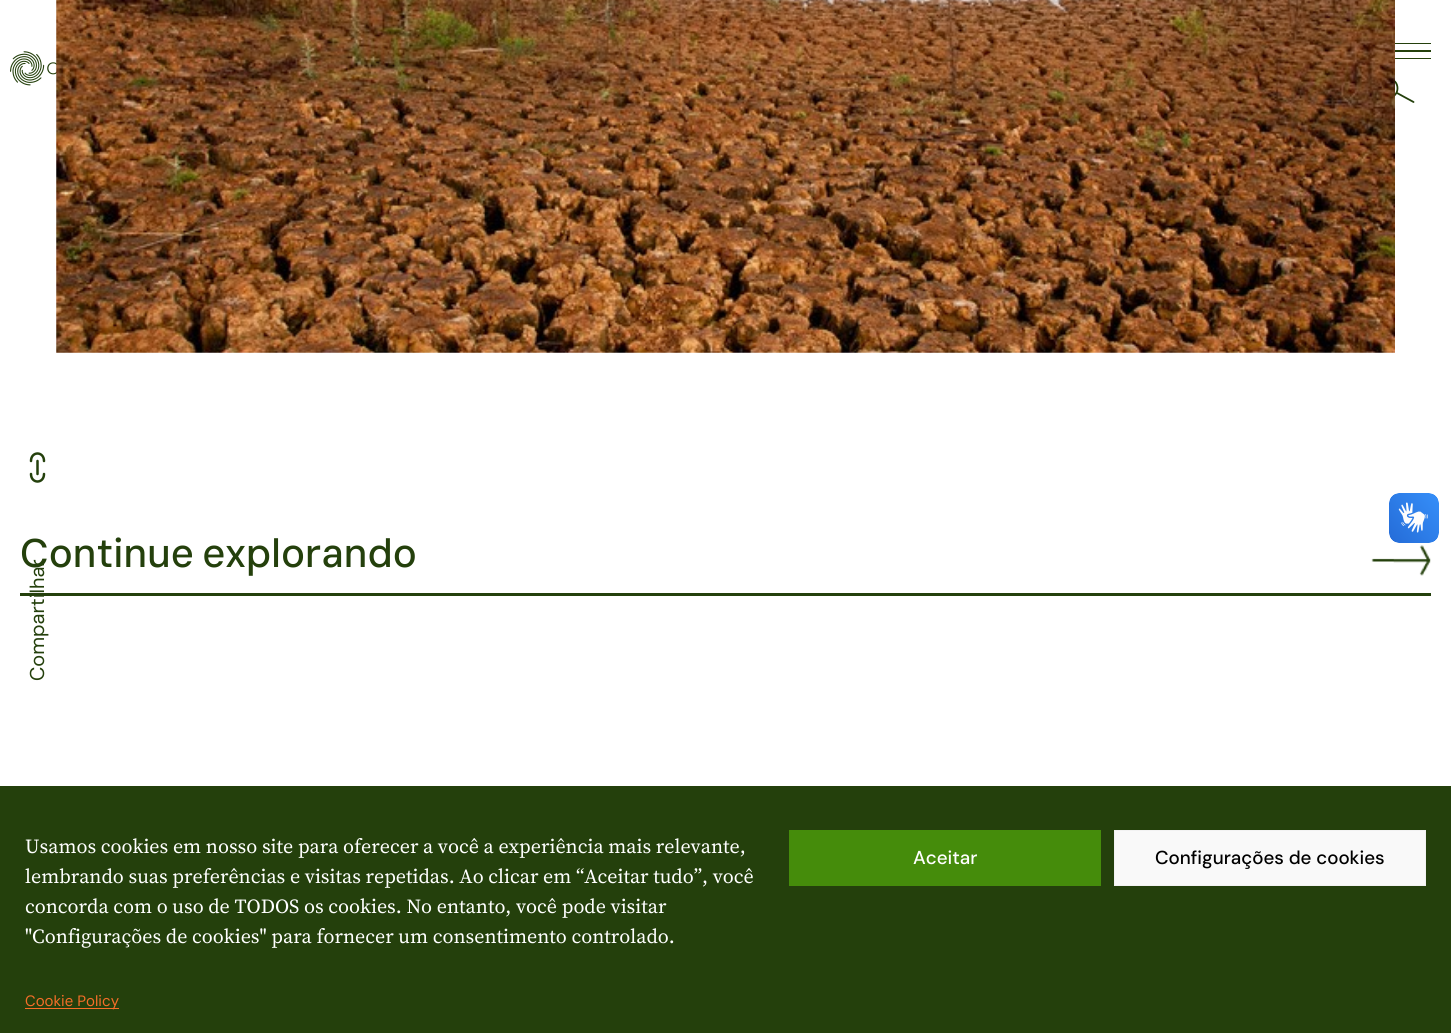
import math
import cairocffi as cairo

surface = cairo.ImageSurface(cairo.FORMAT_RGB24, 1451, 1033)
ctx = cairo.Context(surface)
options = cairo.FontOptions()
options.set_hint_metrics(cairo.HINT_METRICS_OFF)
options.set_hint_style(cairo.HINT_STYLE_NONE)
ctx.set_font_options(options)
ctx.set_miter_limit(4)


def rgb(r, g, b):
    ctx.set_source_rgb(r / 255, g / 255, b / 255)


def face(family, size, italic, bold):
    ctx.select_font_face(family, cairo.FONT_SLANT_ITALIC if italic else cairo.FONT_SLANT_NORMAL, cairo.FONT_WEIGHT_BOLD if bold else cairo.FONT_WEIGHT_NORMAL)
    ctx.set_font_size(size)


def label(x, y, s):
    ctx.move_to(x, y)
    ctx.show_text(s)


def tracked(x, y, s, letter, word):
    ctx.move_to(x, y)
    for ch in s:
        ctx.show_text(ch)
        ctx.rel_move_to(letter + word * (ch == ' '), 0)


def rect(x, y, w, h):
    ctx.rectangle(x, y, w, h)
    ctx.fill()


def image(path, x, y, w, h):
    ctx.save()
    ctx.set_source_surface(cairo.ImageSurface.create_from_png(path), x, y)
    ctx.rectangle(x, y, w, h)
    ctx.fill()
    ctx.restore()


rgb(255, 255, 255)
ctx.paint()
rgb(36, 64, 12)
rect(1389, 43, 42, 1)
rect(1389, 50, 42, 2)
rect(1389, 58, 42, 1)
image('image0.png', 10, 51, 47, 35)
ctx.new_path()
ctx.move_to(1388.5, 97.5)
ctx.curve_to(1400.5, 97.5, 1400.5, 79, 1388.5, 79)
ctx.curve_to(1376, 79, 1376, 97.5, 1388.5, 97.5)
ctx.close_path()
ctx.move_to(1413.5, 102)
ctx.line_to(1397, 93)
ctx.set_line_width(1.8)
ctx.set_line_cap(cairo.LINE_CAP_ROUND)
ctx.set_line_join(cairo.LINE_JOIN_ROUND)
ctx.stroke()
image('image1.png', 1389, 493, 50, 50)
rect(20, 593, 1411, 3)
face('DM Sans Medium', 40, 0, 0)
tracked(20, 567, 'Continue explorando', 0, -2)
image('image2.png', 1371, 545, 60, 31)
image('image3.png', 56, 0, 1339, 353)
ctx.new_path()
ctx.move_to(37.5, 461)
ctx.line_to(37.5, 474)
ctx.move_to(44, 461)
ctx.curve_to(44, 451, 31, 451, 31, 461)
ctx.move_to(31, 474)
ctx.curve_to(31, 484, 44, 484, 44, 474)
ctx.set_line_width(2.5)
ctx.stroke()
face('DM Sans', 20, 0, 0)
ctx.save()
ctx.translate(44, 681)
ctx.rotate(-90 * math.pi / 180)
label(0, 0, 'Compartilhar')
ctx.restore()
rect(0, 786, 1451, 247)
face('Source Serif 4', 20, 0, 0)
rgb(255, 255, 255)
label(25, 853, 'Usamos cookies em nosso site para oferecer a você a experiência mais relevante,')
label(25, 883, 'lembrando suas preferências e visitas repetidas. Ao clicar em “Aceitar tudo”, você')
label(25, 913, 'concorda com o uso de TODOS os cookies. No entanto, você pode visitar')
label(25, 943, '"Configurações de cookies" para fornecer um consentimento controlado.')
rgb(69, 140, 11)
rect(789, 830, 312, 56)
face('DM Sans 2 Medium', 18.75, 0, 0)
rgb(255, 255, 255)
label(913, 864, 'Aceitar')
rgb(249, 249, 249)
ctx.rectangle(1114.5, 830.5, 311, 55)
ctx.fill_preserve()
rgb(242, 242, 242)
ctx.set_line_width(1)
ctx.set_line_cap(cairo.LINE_CAP_BUTT)
ctx.set_line_join(cairo.LINE_JOIN_MITER)
ctx.stroke()
rgb(0, 0, 0)
label(1155, 864, 'Configurações de cookies')
rgb(245, 110, 40)
rect(25, 1008, 94, 1)
face('DM Sans 2', 15, 0, 0)
label(25, 1006, 'Cookie Policy')
surface.write_to_png('render.png')
